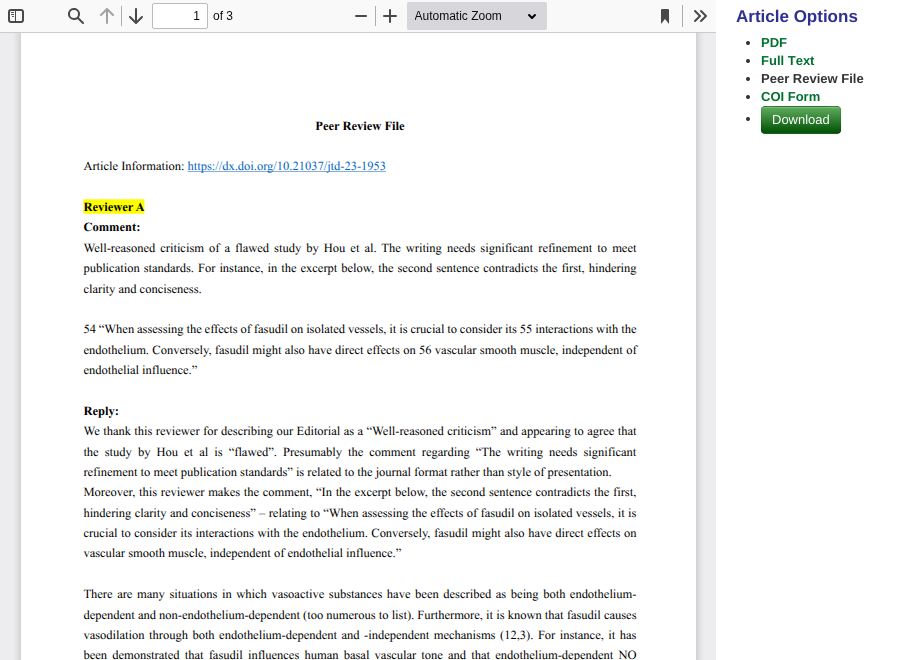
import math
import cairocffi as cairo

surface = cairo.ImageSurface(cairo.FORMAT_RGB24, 916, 660)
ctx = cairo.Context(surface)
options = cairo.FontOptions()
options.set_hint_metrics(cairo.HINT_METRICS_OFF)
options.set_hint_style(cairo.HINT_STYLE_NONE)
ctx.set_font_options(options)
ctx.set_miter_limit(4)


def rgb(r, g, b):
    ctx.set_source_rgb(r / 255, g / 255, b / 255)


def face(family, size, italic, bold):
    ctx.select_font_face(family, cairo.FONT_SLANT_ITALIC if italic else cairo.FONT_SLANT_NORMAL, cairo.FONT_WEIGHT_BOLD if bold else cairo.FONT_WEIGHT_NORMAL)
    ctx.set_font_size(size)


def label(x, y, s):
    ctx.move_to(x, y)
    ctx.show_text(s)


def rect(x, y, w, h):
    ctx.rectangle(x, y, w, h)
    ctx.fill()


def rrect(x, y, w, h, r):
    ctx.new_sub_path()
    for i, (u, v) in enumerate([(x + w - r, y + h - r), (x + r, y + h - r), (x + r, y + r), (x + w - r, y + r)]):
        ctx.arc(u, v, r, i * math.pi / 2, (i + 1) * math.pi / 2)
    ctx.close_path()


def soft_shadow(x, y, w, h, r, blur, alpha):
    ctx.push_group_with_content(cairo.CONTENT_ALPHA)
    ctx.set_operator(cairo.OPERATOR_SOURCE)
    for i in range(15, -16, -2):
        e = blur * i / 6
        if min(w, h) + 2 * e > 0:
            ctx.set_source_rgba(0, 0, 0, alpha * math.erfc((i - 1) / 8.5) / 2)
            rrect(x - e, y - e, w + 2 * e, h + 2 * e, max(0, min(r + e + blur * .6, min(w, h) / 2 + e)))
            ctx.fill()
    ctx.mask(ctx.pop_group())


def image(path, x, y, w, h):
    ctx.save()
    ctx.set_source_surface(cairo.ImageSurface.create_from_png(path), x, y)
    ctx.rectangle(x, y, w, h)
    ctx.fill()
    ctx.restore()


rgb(255, 255, 255)
ctx.paint()
image('image0.png', 0, 0, 716, 660)
face('Liberation Sans', 17, 0, 1)
rgb(46, 48, 146)
label(736, 22, 'Article Options')
rgb(51, 51, 51)
ctx.new_path()
ctx.arc(748, 43, 2, 0, 2 * math.pi)
ctx.fill()
face('Liberation Sans', 13, 0, 1)
rgb(0, 113, 48)
label(761, 47, 'PDF')
rgb(51, 51, 51)
ctx.new_path()
ctx.arc(748, 61, 2, 0, 2 * math.pi)
ctx.fill()
rgb(0, 113, 48)
label(761, 65, 'Full Text')
rgb(51, 51, 51)
ctx.new_path()
ctx.arc(748, 79, 2, 0, 2 * math.pi)
ctx.fill()
label(761, 83, 'Peer Review File')
ctx.new_path()
ctx.arc(748, 97, 2, 0, 2 * math.pi)
ctx.fill()
rgb(0, 113, 48)
label(761, 101, 'COI Form')
rgb(51, 51, 51)
ctx.new_path()
ctx.arc(748, 119, 2, 0, 2 * math.pi)
ctx.fill()
rgb(0, 0, 0)
soft_shadow(761, 107, 80, 28, 4, 1, 0.05)
rgb(46, 125, 50)
rrect(761, 106, 80, 28, 4)
ctx.fill()
ctx.save()
rrect(761, 106, 80, 28, 4)
ctx.clip()
gradient = cairo.LinearGradient(801, 107, 801, 133)
gradient.add_color_stop_rgba(0, 0.376, 0.678, 0.369, 1)
gradient.add_color_stop_rgba(1, 0, 0.314, 0.02, 1)
ctx.set_source(gradient)
rect(761, 107, 80, 26)
ctx.restore()
ctx.set_source_rgba(1, 1, 1, 0.2)
ctx.new_path()
ctx.move_to(765, 108)
ctx.line_to(837, 108)
ctx.curve_to(839, 108, 840, 109, 840, 111)
ctx.curve_to(840, 104, 829, 107, 825, 107)
ctx.line_to(777, 107)
ctx.curve_to(773, 107, 762, 104, 762, 111)
ctx.curve_to(762, 109, 763, 108, 765, 108)
ctx.close_path()
ctx.fill()
ctx.new_path()
ctx.move_to(839.5, 132.5)
ctx.curve_to(839, 133, 838, 133.5, 837, 133.5)
ctx.line_to(765, 133.5)
ctx.curve_to(764, 133.5, 763, 133, 762.5, 132.5)
ctx.set_source_rgba(0, 0, 0, 0.25)
ctx.set_line_width(1)
ctx.stroke()
ctx.new_path()
ctx.move_to(762.5, 132.5)
ctx.curve_to(760.5, 130, 761.5, 122.5, 761.5, 120)
ctx.curve_to(761.5, 104, 759.5, 106.5, 777, 106.5)
ctx.line_to(825, 106.5)
ctx.curve_to(844, 106.5, 840.5, 104.5, 840.5, 123.5)
ctx.curve_to(840.5, 126, 841.5, 130.5, 839.5, 132.5)
ctx.set_source_rgba(0, 0, 0, 0.1)
ctx.stroke()
face('Liberation Sans', 13, 0, 0)
rgb(255, 255, 255)
label(772, 124, 'Download')
surface.write_to_png('render.png')
